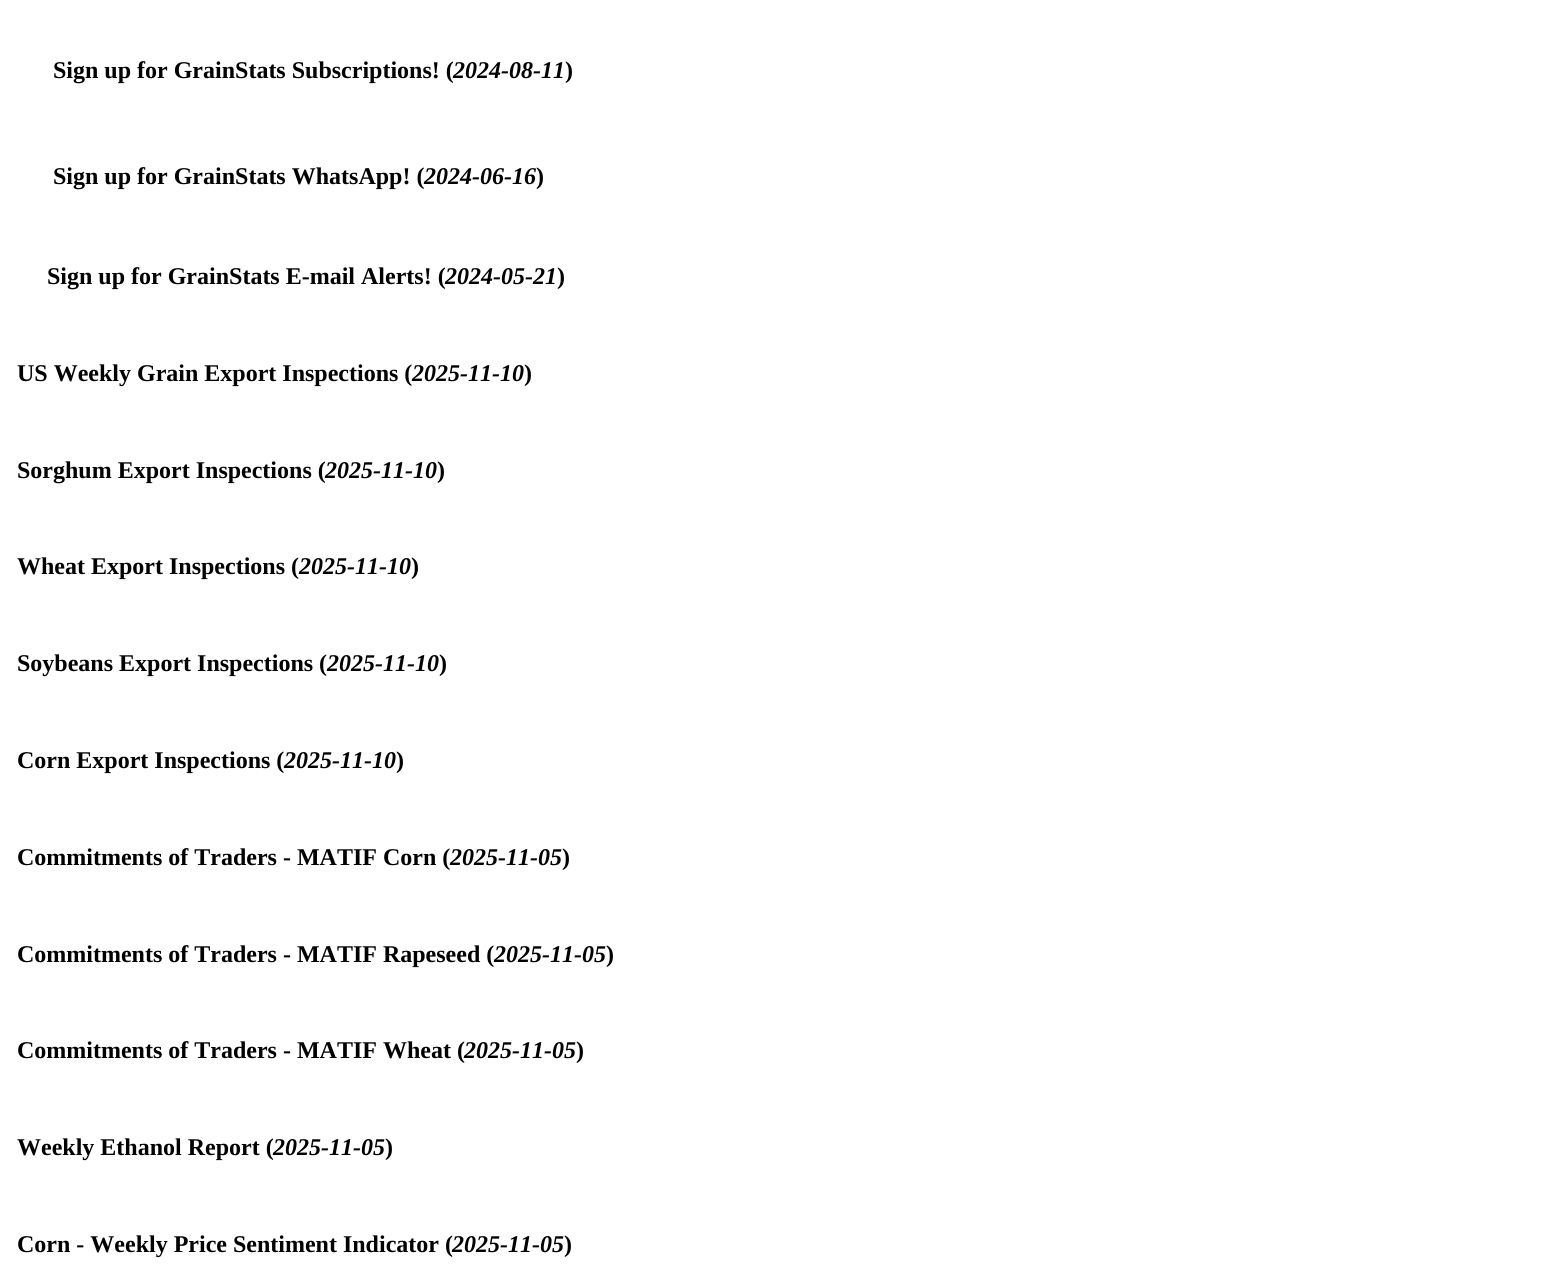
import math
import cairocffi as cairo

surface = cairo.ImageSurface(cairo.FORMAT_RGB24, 1550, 1267)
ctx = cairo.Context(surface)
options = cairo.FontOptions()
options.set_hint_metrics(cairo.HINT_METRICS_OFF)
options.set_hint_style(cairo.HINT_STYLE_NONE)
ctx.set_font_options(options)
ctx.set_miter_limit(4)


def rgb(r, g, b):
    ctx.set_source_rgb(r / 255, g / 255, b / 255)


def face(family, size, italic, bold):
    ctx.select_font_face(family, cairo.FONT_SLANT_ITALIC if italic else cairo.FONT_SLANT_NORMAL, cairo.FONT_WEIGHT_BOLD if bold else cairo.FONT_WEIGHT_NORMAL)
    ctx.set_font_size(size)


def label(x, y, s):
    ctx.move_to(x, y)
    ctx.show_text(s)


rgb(255, 255, 255)
ctx.paint()
face('Liberation Serif', 24, 0, 1)
rgb(0, 0, 0)
label(53, 78, 'Sign up for GrainStats Subscriptions! (')
face('Liberation Serif', 24, 1, 1)
label(453, 78, '2024-08-11')
face('Liberation Serif', 24, 0, 1)
label(565, 78, ')')
label(53, 184, 'Sign up for GrainStats WhatsApp! (')
face('Liberation Serif', 24, 1, 1)
label(424, 184, '2024-06-16')
face('Liberation Serif', 24, 0, 1)
label(536, 184, ')')
label(47, 284, 'Sign up for GrainStats E-mail Alerts! (')
face('Liberation Serif', 24, 1, 1)
label(445, 284, '2024-05-21')
face('Liberation Serif', 24, 0, 1)
label(557, 284, ')')
label(17, 381, 'US Weekly Grain Export Inspections (')
face('Liberation Serif', 24, 1, 1)
label(412, 381, '2025-11-10')
face('Liberation Serif', 24, 0, 1)
label(524, 381, ')')
label(17, 478, 'Sorghum Export Inspections (')
face('Liberation Serif', 24, 1, 1)
label(325, 478, '2025-11-10')
face('Liberation Serif', 24, 0, 1)
label(437, 478, ')')
label(17, 574, 'Wheat Export Inspections (')
face('Liberation Serif', 24, 1, 1)
label(299, 574, '2025-11-10')
face('Liberation Serif', 24, 0, 1)
label(411, 574, ')')
label(17, 671, 'Soybeans Export Inspections (')
face('Liberation Serif', 24, 1, 1)
label(327, 671, '2025-11-10')
face('Liberation Serif', 24, 0, 1)
label(439, 671, ')')
label(17, 768, 'Corn Export Inspections (')
face('Liberation Serif', 24, 1, 1)
label(284, 768, '2025-11-10')
face('Liberation Serif', 24, 0, 1)
label(396, 768, ')')
label(17, 865, 'Commitments of Traders - MATIF Corn (')
face('Liberation Serif', 24, 1, 1)
label(450, 865, '2025-11-05')
face('Liberation Serif', 24, 0, 1)
label(562, 865, ')')
label(17, 962, 'Commitments of Traders - MATIF Rapeseed (')
face('Liberation Serif', 24, 1, 1)
label(494, 962, '2025-11-05')
face('Liberation Serif', 24, 0, 1)
label(606, 962, ')')
label(17, 1058, 'Commitments of Traders - MATIF Wheat (')
face('Liberation Serif', 24, 1, 1)
label(464, 1058, '2025-11-05')
face('Liberation Serif', 24, 0, 1)
label(576, 1058, ')')
label(17, 1155, 'Weekly Ethanol Report (')
face('Liberation Serif', 24, 1, 1)
label(273, 1155, '2025-11-05')
face('Liberation Serif', 24, 0, 1)
label(385, 1155, ')')
label(17, 1252, 'Corn - Weekly Price Sentiment Indicator (')
face('Liberation Serif', 24, 1, 1)
label(452, 1252, '2025-11-05')
face('Liberation Serif', 24, 0, 1)
label(564, 1252, ')')
surface.write_to_png('render.png')
